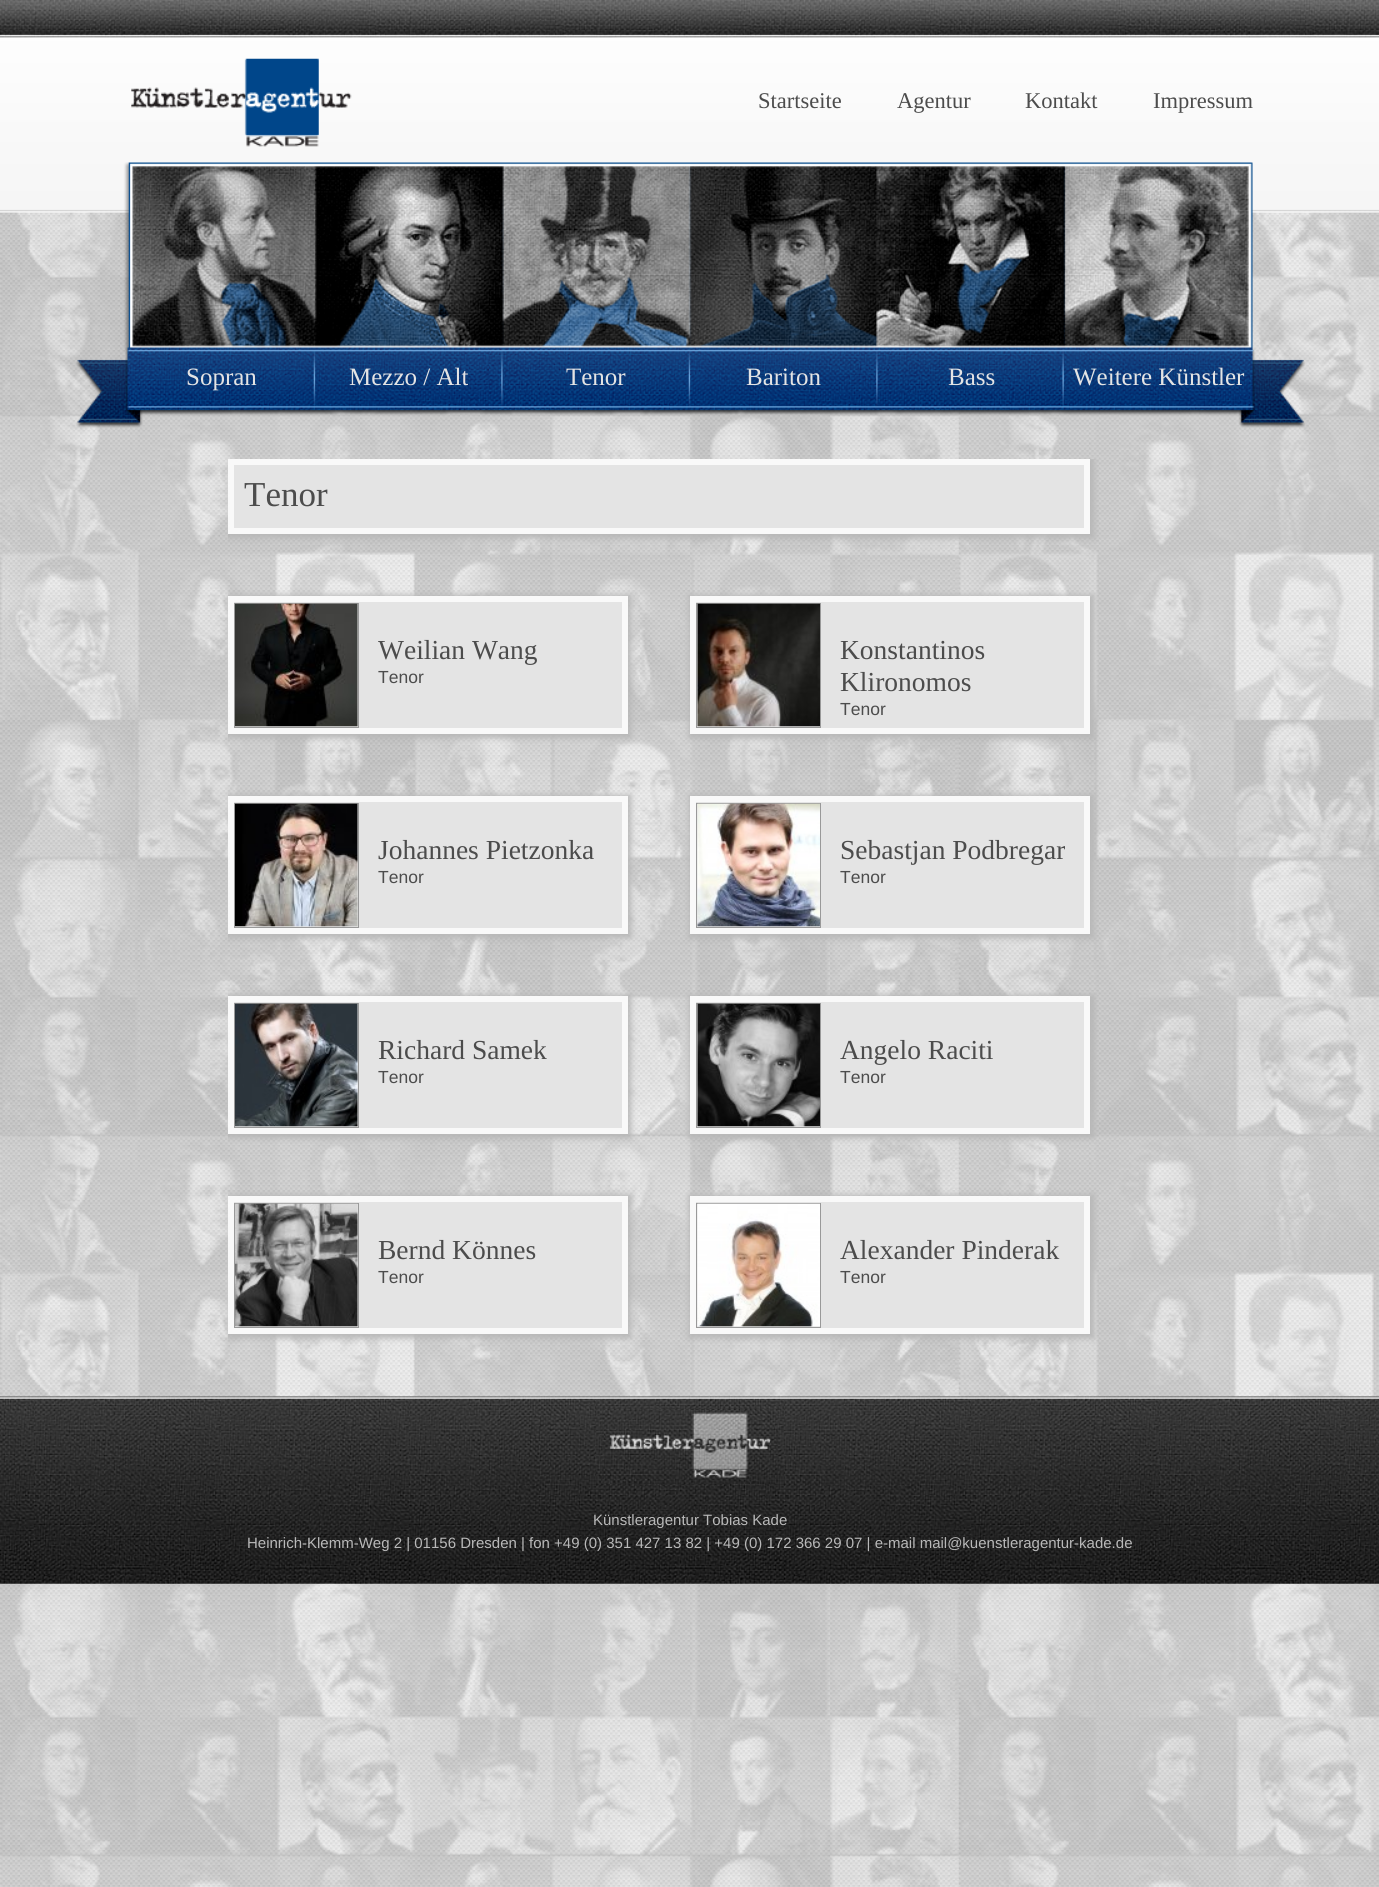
import math
import cairocffi as cairo

surface = cairo.ImageSurface(cairo.FORMAT_RGB24, 1379, 1887)
ctx = cairo.Context(surface)
options = cairo.FontOptions()
options.set_hint_metrics(cairo.HINT_METRICS_OFF)
options.set_hint_style(cairo.HINT_STYLE_NONE)
ctx.set_font_options(options)
ctx.set_miter_limit(4)


def rgb(r, g, b):
    ctx.set_source_rgb(r / 255, g / 255, b / 255)


def face(family, size, italic, bold):
    ctx.select_font_face(family, cairo.FONT_SLANT_ITALIC if italic else cairo.FONT_SLANT_NORMAL, cairo.FONT_WEIGHT_BOLD if bold else cairo.FONT_WEIGHT_NORMAL)
    ctx.set_font_size(size)


def label(x, y, s):
    ctx.move_to(x, y)
    ctx.show_text(s)


def rrect(x, y, w, h, r):
    ctx.new_sub_path()
    for i, (u, v) in enumerate([(x + w - r, y + h - r), (x + r, y + h - r), (x + r, y + r), (x + w - r, y + r)]):
        ctx.arc(u, v, r, i * math.pi / 2, (i + 1) * math.pi / 2)
    ctx.close_path()


def soft_shadow(x, y, w, h, r, blur, alpha):
    ctx.push_group_with_content(cairo.CONTENT_ALPHA)
    ctx.set_operator(cairo.OPERATOR_SOURCE)
    for i in range(15, -16, -2):
        e = blur * i / 6
        if min(w, h) + 2 * e > 0:
            ctx.set_source_rgba(0, 0, 0, alpha * math.erfc((i - 1) / 8.5) / 2)
            rrect(x - e, y - e, w + 2 * e, h + 2 * e, max(0, min(r + e + blur * .6, min(w, h) / 2 + e)))
            ctx.fill()
    ctx.mask(ctx.pop_group())


def image(path, x, y, w, h):
    ctx.save()
    ctx.set_source_surface(cairo.ImageSurface.create_from_png(path), x, y)
    ctx.rectangle(x, y, w, h)
    ctx.fill()
    ctx.restore()


rgb(255, 255, 255)
ctx.paint()
image('image0.png', 0, 37, 1379, 1850)
image('image1.png', 0, 0, 1379, 38)
image('image2.png', 0, 37, 1379, 176)
image('image3.png', 131, 58, 221, 89)
face('Liberation Serif', 22.5, 0, 0)
rgb(76, 76, 76)
label(758, 108, 'Startseite')
label(897, 108, 'Agentur')
label(1025, 108, 'Kontakt')
label(1153, 108, 'Impressum')
image('image4.png', 76, 162, 1229, 266)
face('Liberation Serif', 25, 0, 0)
rgb(228, 228, 228)
label(186, 385, 'Sopran')
label(349, 385, 'Mezzo / Alt')
label(566, 385, 'Tenor')
label(746, 385, 'Bariton')
label(948, 385, 'Bass')
label(1073, 385, 'Weitere Künstler')
ctx.save()
ctx.rectangle(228, 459, 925, 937)
ctx.clip()
rgb(183, 183, 183)
soft_shadow(226, 458, 868, 80, 0, 3, 1)
ctx.restore()
ctx.rectangle(231, 462, 856, 69)
ctx.fill_preserve()
rgb(249, 249, 249)
ctx.set_line_width(6)
ctx.stroke()
face('Liberation Serif', 35, 0, 0)
rgb(76, 76, 76)
label(244, 506, 'Tenor')
ctx.save()
ctx.rectangle(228, 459, 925, 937)
ctx.clip()
rgb(183, 183, 183)
soft_shadow(226, 595, 405, 143, 0, 3, 1)
ctx.restore()
rgb(228, 228, 228)
ctx.rectangle(231, 599, 394, 132)
ctx.fill_preserve()
rgb(249, 249, 249)
ctx.stroke()
ctx.rectangle(234.5, 603.5, 124, 124)
rgb(153, 153, 153)
ctx.set_line_width(1)
ctx.stroke()
image('image5.png', 235, 603, 123, 124)
face('Liberation Serif', 27.5, 0, 0)
rgb(76, 76, 76)
label(378, 659, 'Weilian Wang')
face('Liberation Sans', 17.5, 0, 0)
label(378, 683, 'Tenor')
rgb(183, 183, 183)
soft_shadow(689, 595, 405, 143, 0, 3, 1)
rgb(228, 228, 228)
ctx.rectangle(693, 599, 394, 132)
ctx.fill_preserve()
rgb(249, 249, 249)
ctx.set_line_width(6)
ctx.stroke()
ctx.rectangle(696.5, 603.5, 124, 124)
rgb(153, 153, 153)
ctx.set_line_width(1)
ctx.stroke()
image('image6.png', 697, 603, 123, 124)
face('Liberation Serif', 27.5, 0, 0)
rgb(76, 76, 76)
label(840, 659, 'Konstantinos')
label(840, 691, 'Klironomos')
face('Liberation Sans', 17.5, 0, 0)
label(840, 715, 'Tenor')
ctx.save()
ctx.rectangle(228, 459, 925, 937)
ctx.clip()
rgb(183, 183, 183)
soft_shadow(226, 795, 405, 143, 0, 3, 1)
ctx.restore()
rgb(228, 228, 228)
ctx.rectangle(231, 799, 394, 132)
ctx.fill_preserve()
rgb(249, 249, 249)
ctx.set_line_width(6)
ctx.stroke()
ctx.rectangle(234.5, 803.5, 124, 124)
rgb(153, 153, 153)
ctx.set_line_width(1)
ctx.stroke()
image('image7.png', 235, 803, 123, 124)
face('Liberation Serif', 27.5, 0, 0)
rgb(76, 76, 76)
label(378, 859, 'Johannes Pietzonka')
face('Liberation Sans', 17.5, 0, 0)
label(378, 883, 'Tenor')
rgb(183, 183, 183)
soft_shadow(689, 795, 405, 143, 0, 3, 1)
rgb(228, 228, 228)
ctx.rectangle(693, 799, 394, 132)
ctx.fill_preserve()
rgb(249, 249, 249)
ctx.set_line_width(6)
ctx.stroke()
ctx.rectangle(696.5, 803.5, 124, 124)
rgb(153, 153, 153)
ctx.set_line_width(1)
ctx.stroke()
image('image8.png', 697, 803, 123, 124)
face('Liberation Serif', 27.5, 0, 0)
rgb(76, 76, 76)
label(840, 859, 'Sebastjan Podbregar')
face('Liberation Sans', 17.5, 0, 0)
label(840, 883, 'Tenor')
ctx.save()
ctx.rectangle(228, 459, 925, 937)
ctx.clip()
rgb(183, 183, 183)
soft_shadow(226, 995, 405, 143, 0, 3, 1)
ctx.restore()
rgb(228, 228, 228)
ctx.rectangle(231, 999, 394, 132)
ctx.fill_preserve()
rgb(249, 249, 249)
ctx.set_line_width(6)
ctx.stroke()
ctx.rectangle(234.5, 1003.5, 124, 124)
rgb(153, 153, 153)
ctx.set_line_width(1)
ctx.stroke()
image('image9.png', 235, 1003, 123, 124)
face('Liberation Serif', 27.5, 0, 0)
rgb(76, 76, 76)
label(378, 1059, 'Richard Samek')
face('Liberation Sans', 17.5, 0, 0)
label(378, 1083, 'Tenor')
rgb(183, 183, 183)
soft_shadow(689, 995, 405, 143, 0, 3, 1)
rgb(228, 228, 228)
ctx.rectangle(693, 999, 394, 132)
ctx.fill_preserve()
rgb(249, 249, 249)
ctx.set_line_width(6)
ctx.stroke()
ctx.rectangle(696.5, 1003.5, 124, 124)
rgb(153, 153, 153)
ctx.set_line_width(1)
ctx.stroke()
image('image10.png', 697, 1003, 123, 124)
face('Liberation Serif', 27.5, 0, 0)
rgb(76, 76, 76)
label(840, 1059, 'Angelo Raciti')
face('Liberation Sans', 17.5, 0, 0)
label(840, 1083, 'Tenor')
ctx.save()
ctx.rectangle(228, 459, 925, 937)
ctx.clip()
rgb(183, 183, 183)
soft_shadow(226, 1195, 405, 143, 0, 3, 1)
ctx.restore()
rgb(228, 228, 228)
ctx.rectangle(231, 1199, 394, 132)
ctx.fill_preserve()
rgb(249, 249, 249)
ctx.set_line_width(6)
ctx.stroke()
ctx.rectangle(234.5, 1203.5, 124, 124)
rgb(153, 153, 153)
ctx.set_line_width(1)
ctx.stroke()
image('image11.png', 235, 1203, 123, 124)
face('Liberation Serif', 27.5, 0, 0)
rgb(76, 76, 76)
label(378, 1259, 'Bernd Könnes')
face('Liberation Sans', 17.5, 0, 0)
label(378, 1283, 'Tenor')
rgb(183, 183, 183)
soft_shadow(689, 1195, 405, 143, 0, 3, 1)
rgb(228, 228, 228)
ctx.rectangle(693, 1199, 394, 132)
ctx.fill_preserve()
rgb(249, 249, 249)
ctx.set_line_width(6)
ctx.stroke()
ctx.rectangle(696.5, 1203.5, 124, 124)
rgb(153, 153, 153)
ctx.set_line_width(1)
ctx.stroke()
image('image12.png', 697, 1203, 123, 124)
face('Liberation Serif', 27.5, 0, 0)
rgb(76, 76, 76)
label(840, 1259, 'Alexander Pinderak')
face('Liberation Sans', 17.5, 0, 0)
label(840, 1283, 'Tenor')
image('image13.png', 0, 1396, 1379, 188)
image('image14.png', 602, 1408, 176, 76)
face('Liberation Sans', 15, 0, 0)
rgb(185, 185, 185)
label(593, 1525, 'Künstleragentur Tobias Kade')
label(247, 1548, 'Heinrich-Klemm-Weg 2 | 01156 Dresden | fon +49 (0) 351 427 13 82 | +49 (0) 172 366 29 07 | e-mail mail@kuenstleragentur-kade.de')
surface.write_to_png('render.png')
